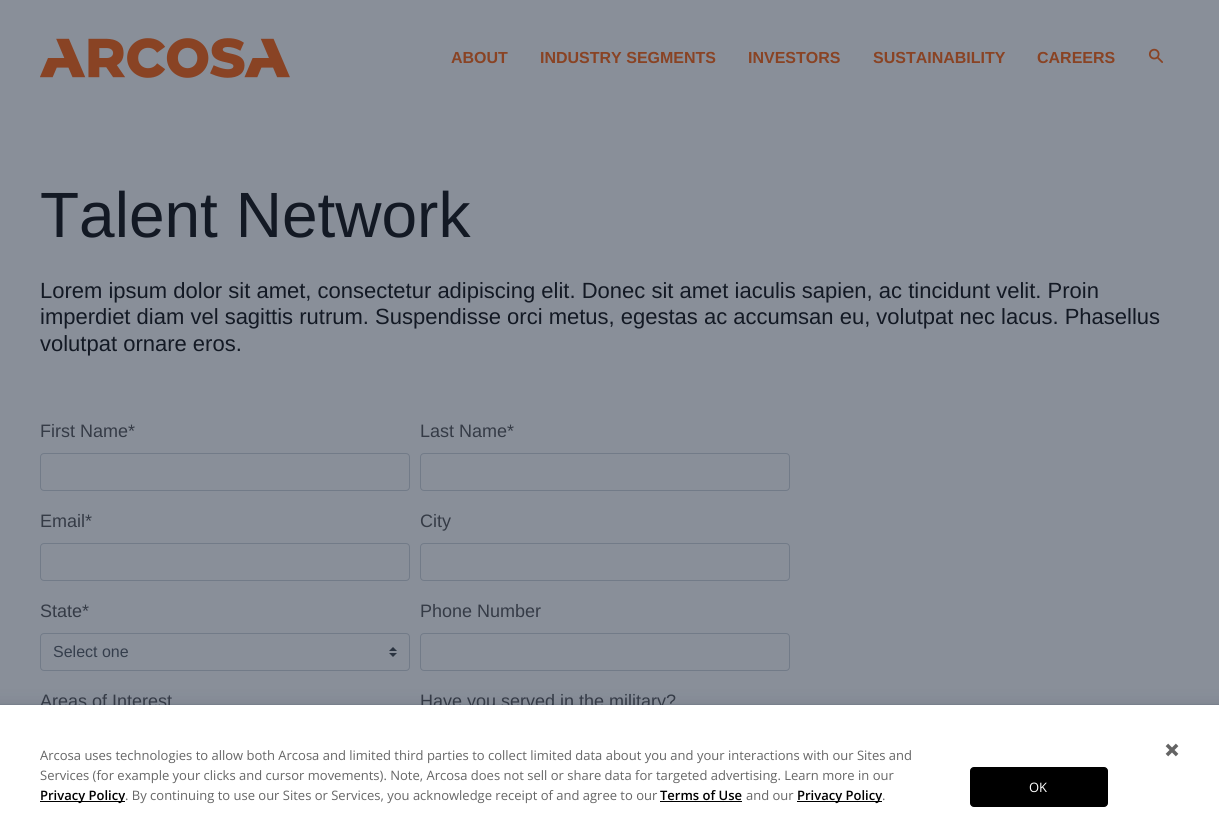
import math
import cairocffi as cairo

surface = cairo.ImageSurface(cairo.FORMAT_RGB24, 1219, 827)
ctx = cairo.Context(surface)
options = cairo.FontOptions()
options.set_hint_metrics(cairo.HINT_METRICS_OFF)
options.set_hint_style(cairo.HINT_STYLE_NONE)
ctx.set_font_options(options)
ctx.set_miter_limit(4)


def rgb(r, g, b):
    ctx.set_source_rgb(r / 255, g / 255, b / 255)


def face(family, size, italic, bold):
    ctx.select_font_face(family, cairo.FONT_SLANT_ITALIC if italic else cairo.FONT_SLANT_NORMAL, cairo.FONT_WEIGHT_BOLD if bold else cairo.FONT_WEIGHT_NORMAL)
    ctx.set_font_size(size)


def label(x, y, s):
    ctx.move_to(x, y)
    ctx.show_text(s)


def rect(x, y, w, h):
    ctx.rectangle(x, y, w, h)
    ctx.fill()


def rrect(x, y, w, h, r):
    ctx.new_sub_path()
    for i, (u, v) in enumerate([(x + w - r, y + h - r), (x + r, y + h - r), (x + r, y + r), (x + w - r, y + r)]):
        ctx.arc(u, v, r, i * math.pi / 2, (i + 1) * math.pi / 2)
    ctx.close_path()


def soft_shadow(x, y, w, h, r, blur, alpha):
    ctx.push_group_with_content(cairo.CONTENT_ALPHA)
    ctx.set_operator(cairo.OPERATOR_SOURCE)
    for i in range(15, -16, -2):
        e = blur * i / 6
        if min(w, h) + 2 * e > 0:
            ctx.set_source_rgba(0, 0, 0, alpha * math.erfc((i - 1) / 8.5) / 2)
            rrect(x - e, y - e, w + 2 * e, h + 2 * e, max(0, min(r + e + blur * .6, min(w, h) / 2 + e)))
            ctx.fill()
    ctx.mask(ctx.pop_group())


def image(path, x, y, w, h):
    ctx.save()
    ctx.set_source_surface(cairo.ImageSurface.create_from_png(path), x, y)
    ctx.rectangle(x, y, w, h)
    ctx.fill()
    ctx.restore()


rgb(137, 143, 153)
ctx.paint()
image('image0.png', 40, 38, 250, 40)
face('Liberation Sans', 16, 0, 1)
rgb(137, 67, 36)
label(451, 63, 'ABOUT')
label(540, 63, 'INDUSTRY SEGMENTS')
label(748, 63, 'INVESTORS')
label(873, 63, 'SUSTAINABILITY')
label(1037, 63, 'CAREERS')
image('image1.png', 1148, 48, 15, 15)
face('Liberation Sans', 64, 0, 0)
rgb(19, 25, 36)
label(40, 237, 'Talent Network')
face('Liberation Sans', 22, 0, 0)
label(40, 298, 'Lorem ipsum dolor sit amet, consectetur adipiscing elit. Donec sit amet iaculis sapien, ac tincidunt velit. Proin')
label(40, 324, 'imperdiet diam vel sagittis rutrum. Suspendisse orci metus, egestas ac accumsan eu, volutpat nec lacus. Phasellus')
label(40, 351, 'volutpat ornare eros.')
face('Liberation Sans', 18, 0, 0)
rgb(53, 59, 70)
label(40, 437, 'First Name*')
rrect(40.5, 453.5, 369, 37, 3.5)
rgb(114, 123, 136)
ctx.set_line_width(1)
ctx.stroke()
rgb(53, 59, 70)
label(420, 437, 'Last Name*')
rrect(420.5, 453.5, 369, 37, 3.5)
rgb(114, 123, 136)
ctx.stroke()
rgb(53, 59, 70)
label(40, 527, 'Email*')
rrect(40.5, 543.5, 369, 37, 3.5)
rgb(114, 123, 136)
ctx.stroke()
rgb(53, 59, 70)
label(420, 527, 'City')
rrect(420.5, 543.5, 369, 37, 3.5)
rgb(114, 123, 136)
ctx.stroke()
rgb(53, 59, 70)
label(40, 617, 'State*')
image('image2.png', 389, 647, 8, 10)
rrect(40.5, 633.5, 369, 37, 3.5)
rgb(114, 123, 136)
ctx.stroke()
face('Liberation Sans', 16, 0, 0)
rgb(53, 62, 76)
label(53, 657, 'Select one')
face('Liberation Sans', 18, 0, 0)
rgb(53, 59, 70)
label(420, 617, 'Phone Number')
rrect(420.5, 633.5, 369, 37, 3.5)
rgb(114, 123, 136)
ctx.stroke()
rgb(53, 59, 70)
label(40, 707, 'Areas of Interest')
label(420, 707, 'Have you served in the military?')
rgb(36, 47, 66)
soft_shadow(-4, 711, 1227, 110, 0, 10, 0.31)
ctx.rectangle(-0.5, 704.5, 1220, 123)
ctx.set_source_rgba(0.141, 0.184, 0.259, 0.08)
ctx.stroke()
rgb(255, 255, 255)
rect(0, 705, 1219, 122)
face('Open Sans', 13, 0, 0)
rgb(102, 102, 102)
label(40, 760, 'Arcosa uses technologies to allow both Arcosa and limited third parties to collect limited data about you and your interactions with our Sites and')
label(40, 780, 'Services (for example your clicks and cursor movements). Note, Arcosa does not sell or share data for targeted advertising. Learn more in our')
rgb(0, 0, 0)
rect(40, 801, 85, 1)
face('Open Sans SemiBold', 13, 0, 0)
label(40, 800, 'Privacy Policy')
face('Open Sans', 13, 0, 0)
rgb(102, 102, 102)
label(125, 800, '. By continuing to use our Sites or Services, you acknowledge receipt of and agree to our')
face('Open Sans SemiBold', 13, 0, 0)
rgb(0, 0, 0)
label(660, 800, 'Terms of Use')
rect(660, 801, 82, 1)
face('Open Sans', 13, 0, 0)
rgb(102, 102, 102)
label(746, 800, 'and our')
rgb(0, 0, 0)
rect(797, 801, 85, 1)
face('Open Sans SemiBold', 13, 0, 0)
label(797, 800, 'Privacy Policy')
face('Open Sans', 13, 0, 0)
rgb(102, 102, 102)
label(882, 800, '.')
image('image3.png', 1165, 743, 14, 14)
rgb(0, 0, 0)
rrect(970.5, 767.5, 137, 39, 3.5)
ctx.fill_preserve()
ctx.stroke()
rgb(255, 255, 255)
label(1029, 792, 'OK')
surface.write_to_png('render.png')
